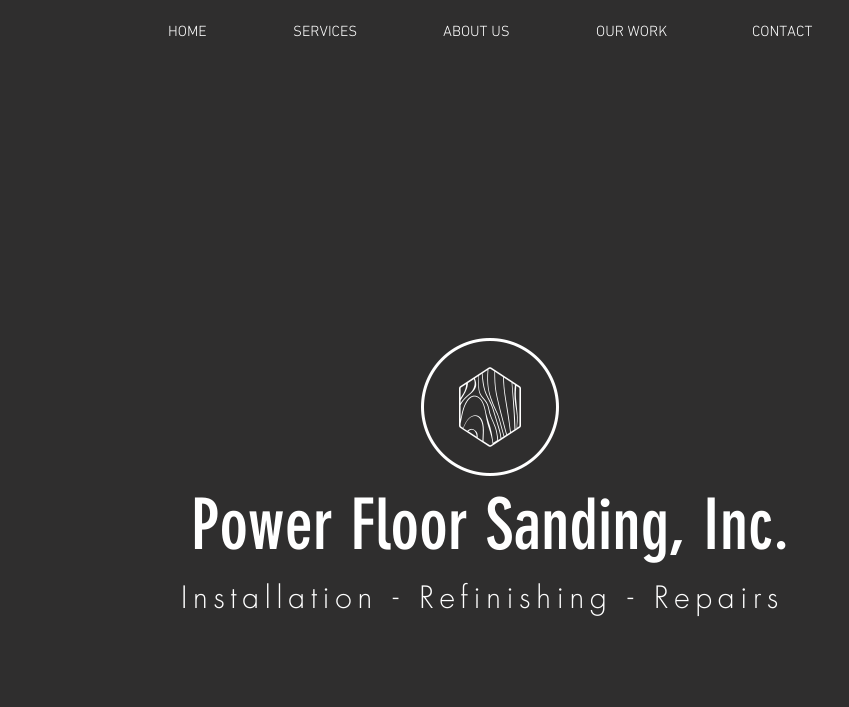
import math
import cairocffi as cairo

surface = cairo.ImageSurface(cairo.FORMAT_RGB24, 849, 707)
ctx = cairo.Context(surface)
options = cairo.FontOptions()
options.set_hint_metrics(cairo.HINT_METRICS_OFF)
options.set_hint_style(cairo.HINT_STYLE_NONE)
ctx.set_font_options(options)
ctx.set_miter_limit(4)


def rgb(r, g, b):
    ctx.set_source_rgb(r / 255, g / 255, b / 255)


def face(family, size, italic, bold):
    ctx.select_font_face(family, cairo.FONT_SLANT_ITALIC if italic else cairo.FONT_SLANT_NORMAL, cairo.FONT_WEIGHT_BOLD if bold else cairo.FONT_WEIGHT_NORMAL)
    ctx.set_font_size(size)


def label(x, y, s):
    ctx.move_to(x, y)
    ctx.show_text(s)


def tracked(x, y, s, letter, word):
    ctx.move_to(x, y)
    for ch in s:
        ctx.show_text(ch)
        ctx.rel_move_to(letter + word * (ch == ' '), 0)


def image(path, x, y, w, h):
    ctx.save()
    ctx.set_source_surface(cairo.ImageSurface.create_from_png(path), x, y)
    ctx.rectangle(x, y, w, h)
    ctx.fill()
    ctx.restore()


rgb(47, 46, 46)
ctx.paint()
face('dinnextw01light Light', 15, 0, 0)
rgb(255, 255, 255)
label(168, 36, 'HOME')
label(293, 36, 'SERVICES')
label(443, 36, 'ABOUT US')
label(596, 36, 'OUR WORK')
label(752, 36, 'CONTACT')
ctx.new_path()
ctx.arc(490, 407, 67.5, 0, 2 * math.pi)
ctx.set_line_width(3)
ctx.stroke()
image('image0.png', 459, 367, 62, 80)
face('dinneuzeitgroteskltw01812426', 70, 0, 0)
label(191, 549, 'Power Floor Sanding, Inc.')
face('futura Light', 30, 0, 0)
tracked(181, 608, 'Installation - Refinishing - Repairs', 5.7, 0)
surface.write_to_png('render.png')
